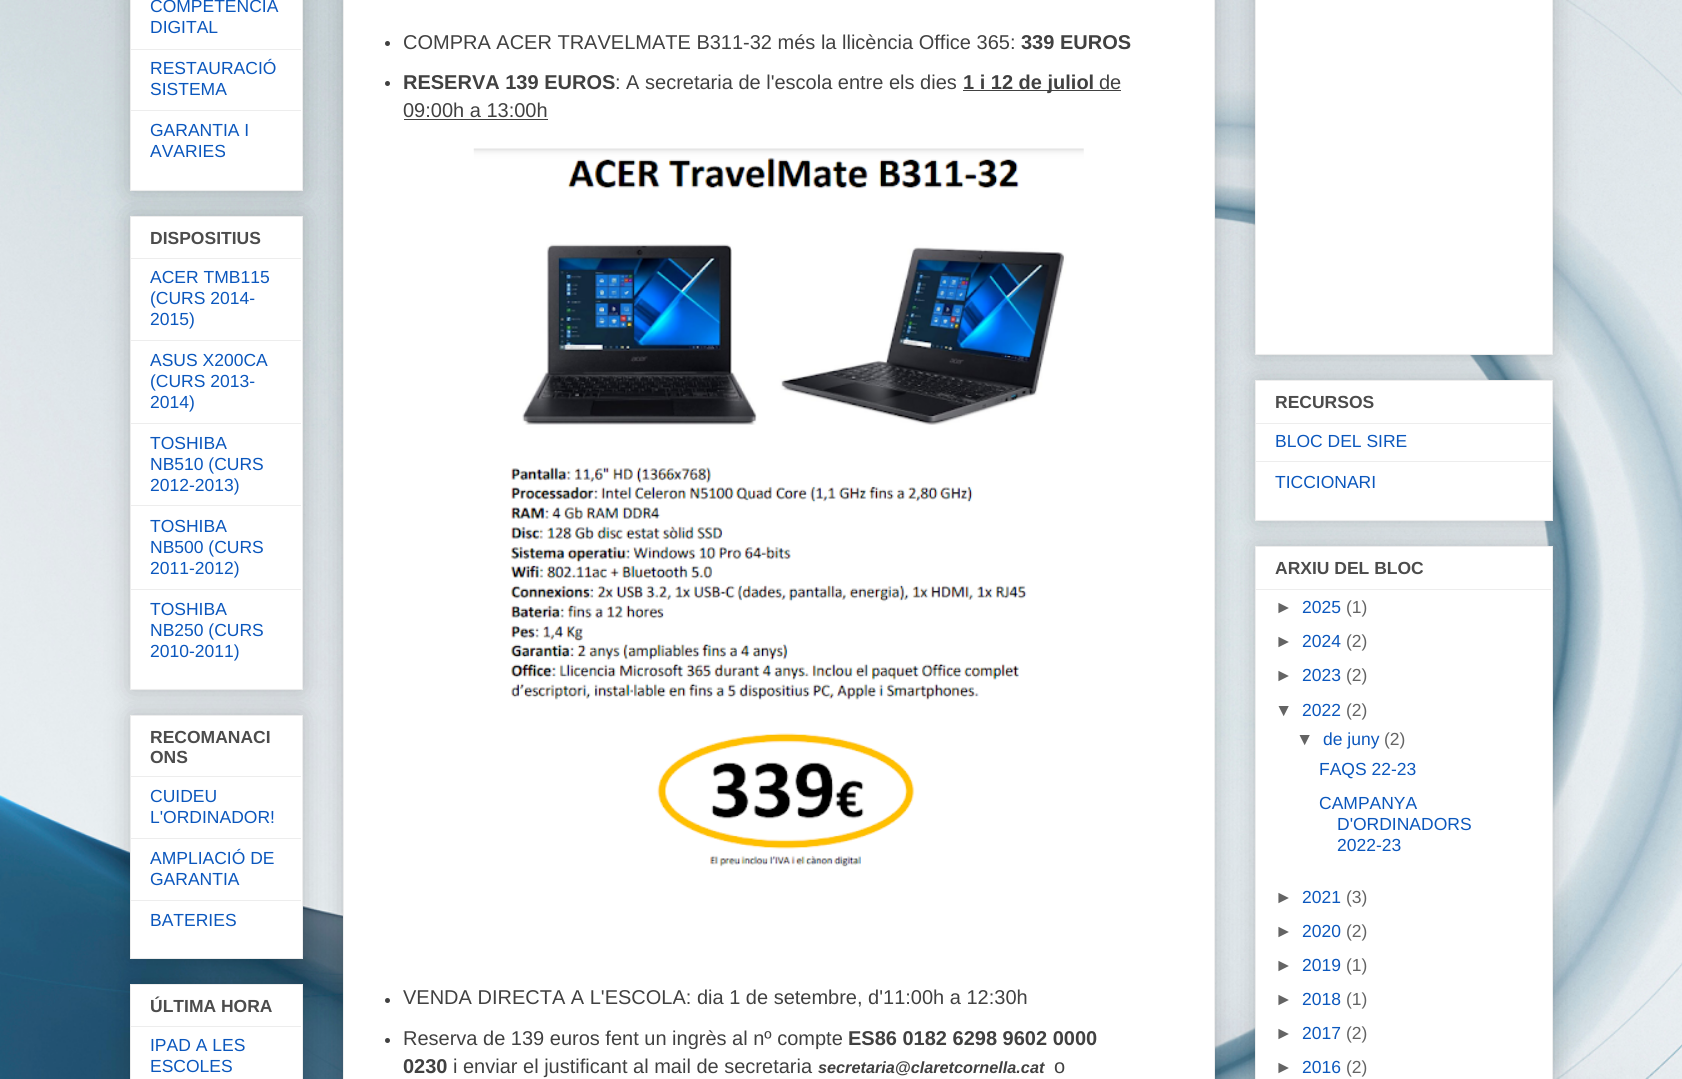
import math
import cairocffi as cairo

surface = cairo.ImageSurface(cairo.FORMAT_RGB24, 1682, 1079)
ctx = cairo.Context(surface)
options = cairo.FontOptions()
options.set_hint_metrics(cairo.HINT_METRICS_OFF)
options.set_hint_style(cairo.HINT_STYLE_NONE)
ctx.set_font_options(options)
ctx.set_miter_limit(4)


def rgb(r, g, b):
    ctx.set_source_rgb(r / 255, g / 255, b / 255)


def face(family, size, italic, bold):
    ctx.select_font_face(family, cairo.FONT_SLANT_ITALIC if italic else cairo.FONT_SLANT_NORMAL, cairo.FONT_WEIGHT_BOLD if bold else cairo.FONT_WEIGHT_NORMAL)
    ctx.set_font_size(size)


def label(x, y, s):
    ctx.move_to(x, y)
    ctx.show_text(s)


def rect(x, y, w, h):
    ctx.rectangle(x, y, w, h)
    ctx.fill()


def rrect(x, y, w, h, r):
    ctx.new_sub_path()
    for i, (u, v) in enumerate([(x + w - r, y + h - r), (x + r, y + h - r), (x + r, y + r), (x + w - r, y + r)]):
        ctx.arc(u, v, r, i * math.pi / 2, (i + 1) * math.pi / 2)
    ctx.close_path()


def soft_shadow(x, y, w, h, r, blur, alpha):
    ctx.push_group_with_content(cairo.CONTENT_ALPHA)
    ctx.set_operator(cairo.OPERATOR_SOURCE)
    for i in range(15, -16, -2):
        e = blur * i / 6
        if min(w, h) + 2 * e > 0:
            ctx.set_source_rgba(0, 0, 0, alpha * math.erfc((i - 1) / 8.5) / 2)
            rrect(x - e, y - e, w + 2 * e, h + 2 * e, max(0, min(r + e + blur * .6, min(w, h) / 2 + e)))
            ctx.fill()
    ctx.mask(ctx.pop_group())


def image(path, x, y, w, h):
    ctx.save()
    ctx.set_source_surface(cairo.ImageSurface.create_from_png(path), x, y)
    ctx.rectangle(x, y, w, h)
    ctx.fill()
    ctx.restore()


rgb(255, 255, 255)
ctx.paint()
image('image0.png', 0, 0, 1682, 1079)
rgb(0, 0, 0)
soft_shadow(130, -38, 173, 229, 0, 12.5, 0.2)
rgb(255, 255, 255)
ctx.rectangle(130.5, -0.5, 172, 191)
ctx.fill_preserve()
rgb(237, 237, 237)
ctx.set_line_width(1)
ctx.stroke()
face('Liberation Sans', 17.5, 0, 0)
rgb(11, 87, 189)
label(150, 12, 'COMPETÈNCIA')
label(150, 33, 'DIGITAL')
rgb(237, 237, 237)
rect(131, 49, 170, 1)
rgb(11, 87, 189)
label(150, 74, 'RESTAURACIÓ')
label(150, 95, 'SISTEMA')
rgb(237, 237, 237)
rect(131, 110, 170, 1)
rgb(11, 87, 189)
label(150, 136, 'GARANTIA I')
label(150, 157, 'AVARIES')
rgb(0, 0, 0)
soft_shadow(130, 216, 173, 474, 0, 12.5, 0.2)
rgb(255, 255, 255)
ctx.rectangle(130.5, 216.5, 172, 473)
ctx.fill_preserve()
rgb(237, 237, 237)
ctx.stroke()
face('Liberation Sans', 17.5, 0, 1)
rgb(76, 76, 76)
label(150, 244, 'DISPOSITIUS')
rgb(237, 237, 237)
rect(131, 258, 170, 1)
face('Liberation Sans', 17.5, 0, 0)
rgb(11, 87, 189)
label(150, 283, 'ACER TMB115')
label(150, 304, '(CURS 2014-')
label(150, 325, '2015)')
rgb(237, 237, 237)
rect(131, 340, 170, 1)
rgb(11, 87, 189)
label(150, 366, 'ASUS X200CA')
label(150, 387, '(CURS 2013-')
label(150, 408, '2014)')
rgb(237, 237, 237)
rect(131, 423, 170, 1)
rgb(11, 87, 189)
label(150, 449, 'TOSHIBA')
label(150, 470, 'NB510 (CURS')
label(150, 491, '2012-2013)')
rgb(237, 237, 237)
rect(131, 505, 170, 1)
rgb(11, 87, 189)
label(150, 532, 'TOSHIBA')
label(150, 553, 'NB500 (CURS')
label(150, 574, '2011-2012)')
rgb(237, 237, 237)
rect(131, 589, 170, 1)
rgb(11, 87, 189)
label(150, 615, 'TOSHIBA')
label(150, 636, 'NB250 (CURS')
label(150, 657, '2010-2011)')
rgb(0, 0, 0)
soft_shadow(130, 715, 173, 244, 0, 12.5, 0.2)
rgb(255, 255, 255)
ctx.rectangle(130.5, 715.5, 172, 243)
ctx.fill_preserve()
rgb(237, 237, 237)
ctx.stroke()
face('Liberation Sans', 17.5, 0, 1)
rgb(76, 76, 76)
label(150, 743, 'RECOMANACI')
label(150, 763, 'ONS')
rgb(237, 237, 237)
rect(131, 776, 170, 1)
face('Liberation Sans', 17.5, 0, 0)
rgb(11, 87, 189)
label(150, 802, 'CUIDEU')
label(150, 823, 'L\'ORDINADOR!')
rgb(237, 237, 237)
rect(131, 838, 170, 1)
rgb(11, 87, 189)
label(150, 864, 'AMPLIACIÓ DE')
label(150, 885, 'GARANTIA')
rgb(237, 237, 237)
rect(131, 900, 170, 1)
rgb(11, 87, 189)
label(150, 926, 'BATERIES')
rgb(0, 0, 0)
soft_shadow(130, 984, 173, 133, 0, 12.5, 0.2)
rgb(255, 255, 255)
ctx.rectangle(130.5, 984.5, 172, 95)
ctx.fill_preserve()
rgb(237, 237, 237)
ctx.stroke()
face('Liberation Sans', 17.5, 0, 1)
rgb(76, 76, 76)
label(150, 1012, 'ÚLTIMA HORA')
rgb(237, 237, 237)
rect(131, 1026, 170, 1)
face('Liberation Sans', 17.5, 0, 0)
rgb(11, 87, 189)
label(150, 1051, 'IPAD A LES')
label(150, 1072, 'ESCOLES')
rgb(0, 0, 0)
soft_shadow(343, -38, 872, 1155, 0, 12.5, 0.2)
rgb(255, 255, 255)
ctx.rectangle(343.5, -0.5, 871, 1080)
ctx.fill_preserve()
rgb(238, 238, 238)
ctx.stroke()
rgb(65, 65, 65)
ctx.arc(387.5, 43.5, 2.5, 0, 2 * math.pi)
ctx.fill()
face('Liberation Sans', 20, 0, 0)
label(403, 49, 'COMPRA ACER TRAVELMATE B311-32 més la llicència Office 365:')
face('Liberation Sans', 20, 0, 1)
label(1021, 49, '339 EUROS')
ctx.new_path()
ctx.arc(387.5, 83.5, 2.5, 0, 2 * math.pi)
ctx.fill()
label(403, 89, 'RESERVA 139 EUROS')
face('Liberation Sans', 20, 0, 0)
label(615, 89, ': A secretaria de l\'escola entre els dies')
rect(963, 90, 158, 1)
face('Liberation Sans', 20, 0, 1)
label(963, 89, '1 i 12 de juliol')
face('Liberation Sans', 20, 0, 0)
label(1099, 89, 'de')
label(403, 117, '09:00h a 13:00h')
rect(404, 119, 144, 1)
image('image1.png', 473, 148, 611, 719)
ctx.arc(387.5, 1000.5, 2.5, 0, 2 * math.pi)
ctx.fill()
label(403, 1004, 'VENDA DIRECTA A L\'ESCOLA: dia 1 de setembre, d\'11:00h a 12:30h')
ctx.new_path()
ctx.arc(387.5, 1040.5, 2.5, 0, 2 * math.pi)
ctx.fill()
label(403, 1045, 'Reserva de 139 euros fent un ingrès al nº compte')
face('Liberation Sans', 20, 0, 1)
label(848, 1045, 'ES86 0182 6298 9602 0000')
label(403, 1073, '0230')
face('Liberation Sans', 20, 0, 0)
label(453, 1073, 'i enviar el justificant al mail de secretaria')
face('Liberation Sans', 16.25, 1, 1)
label(818, 1073, 'secretaria@claretcornella.cat')
face('Liberation Sans', 20, 0, 0)
label(1054, 1073, 'o')
rgb(0, 0, 0)
soft_shadow(1255, -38, 298, 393, 0, 12.5, 0.2)
rgb(255, 255, 255)
ctx.rectangle(1255.5, -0.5, 297, 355)
ctx.fill_preserve()
rgb(237, 237, 237)
ctx.stroke()
rgb(0, 0, 0)
soft_shadow(1255, 380, 298, 141, 0, 12.5, 0.2)
rgb(255, 255, 255)
ctx.rectangle(1255.5, 380.5, 297, 140)
ctx.fill_preserve()
rgb(237, 237, 237)
ctx.stroke()
face('Liberation Sans', 17.5, 0, 1)
rgb(76, 76, 76)
label(1275, 408, 'RECURSOS')
rgb(237, 237, 237)
rect(1256, 423, 295, 1)
face('Liberation Sans', 17.5, 0, 0)
rgb(11, 87, 189)
label(1275, 447, 'BLOC DEL SIRE')
rgb(237, 237, 237)
rect(1256, 461, 295, 1)
rgb(11, 87, 189)
label(1275, 488, 'TICCIONARI')
rgb(0, 0, 0)
soft_shadow(1255, 546, 298, 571, 0, 12.5, 0.2)
rgb(255, 255, 255)
ctx.rectangle(1255.5, 546.5, 297, 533)
ctx.fill_preserve()
rgb(237, 237, 237)
ctx.stroke()
face('Liberation Sans', 17.5, 0, 1)
rgb(76, 76, 76)
label(1275, 574, 'ARXIU DEL BLOC')
rgb(237, 237, 237)
rect(1256, 589, 295, 1)
face('Liberation Sans', 17.5, 0, 0)
rgb(100, 100, 100)
label(1275, 613, '►')
rgb(11, 87, 189)
label(1302, 613, '2025')
rgb(100, 100, 100)
label(1346, 613, '(1)')
label(1275, 647, '►')
rgb(11, 87, 189)
label(1302, 647, '2024')
rgb(100, 100, 100)
label(1346, 647, '(2)')
label(1275, 681, '►')
rgb(11, 87, 189)
label(1302, 681, '2023')
rgb(100, 100, 100)
label(1346, 681, '(2)')
label(1275, 716, '▼')
rgb(11, 87, 189)
label(1302, 716, '2022')
rgb(100, 100, 100)
label(1346, 716, '(2)')
label(1296, 745, '▼')
rgb(11, 87, 189)
label(1323, 745, 'de juny')
rgb(100, 100, 100)
label(1384, 745, '(2)')
rgb(11, 87, 189)
label(1319, 775, 'FAQS 22-23')
label(1319, 809, 'CAMPANYA')
label(1337, 830, 'D\'ORDINADORS')
label(1337, 851, '2022-23')
rgb(100, 100, 100)
label(1275, 903, '►')
rgb(11, 87, 189)
label(1302, 903, '2021')
rgb(100, 100, 100)
label(1346, 903, '(3)')
label(1275, 937, '►')
rgb(11, 87, 189)
label(1302, 937, '2020')
rgb(100, 100, 100)
label(1346, 937, '(2)')
label(1275, 971, '►')
rgb(11, 87, 189)
label(1302, 971, '2019')
rgb(100, 100, 100)
label(1346, 971, '(1)')
label(1275, 1005, '►')
rgb(11, 87, 189)
label(1302, 1005, '2018')
rgb(100, 100, 100)
label(1346, 1005, '(1)')
label(1275, 1039, '►')
rgb(11, 87, 189)
label(1302, 1039, '2017')
rgb(100, 100, 100)
label(1346, 1039, '(2)')
label(1275, 1073, '►')
rgb(11, 87, 189)
label(1302, 1073, '2016')
rgb(100, 100, 100)
label(1346, 1073, '(2)')
surface.write_to_png('render.png')
